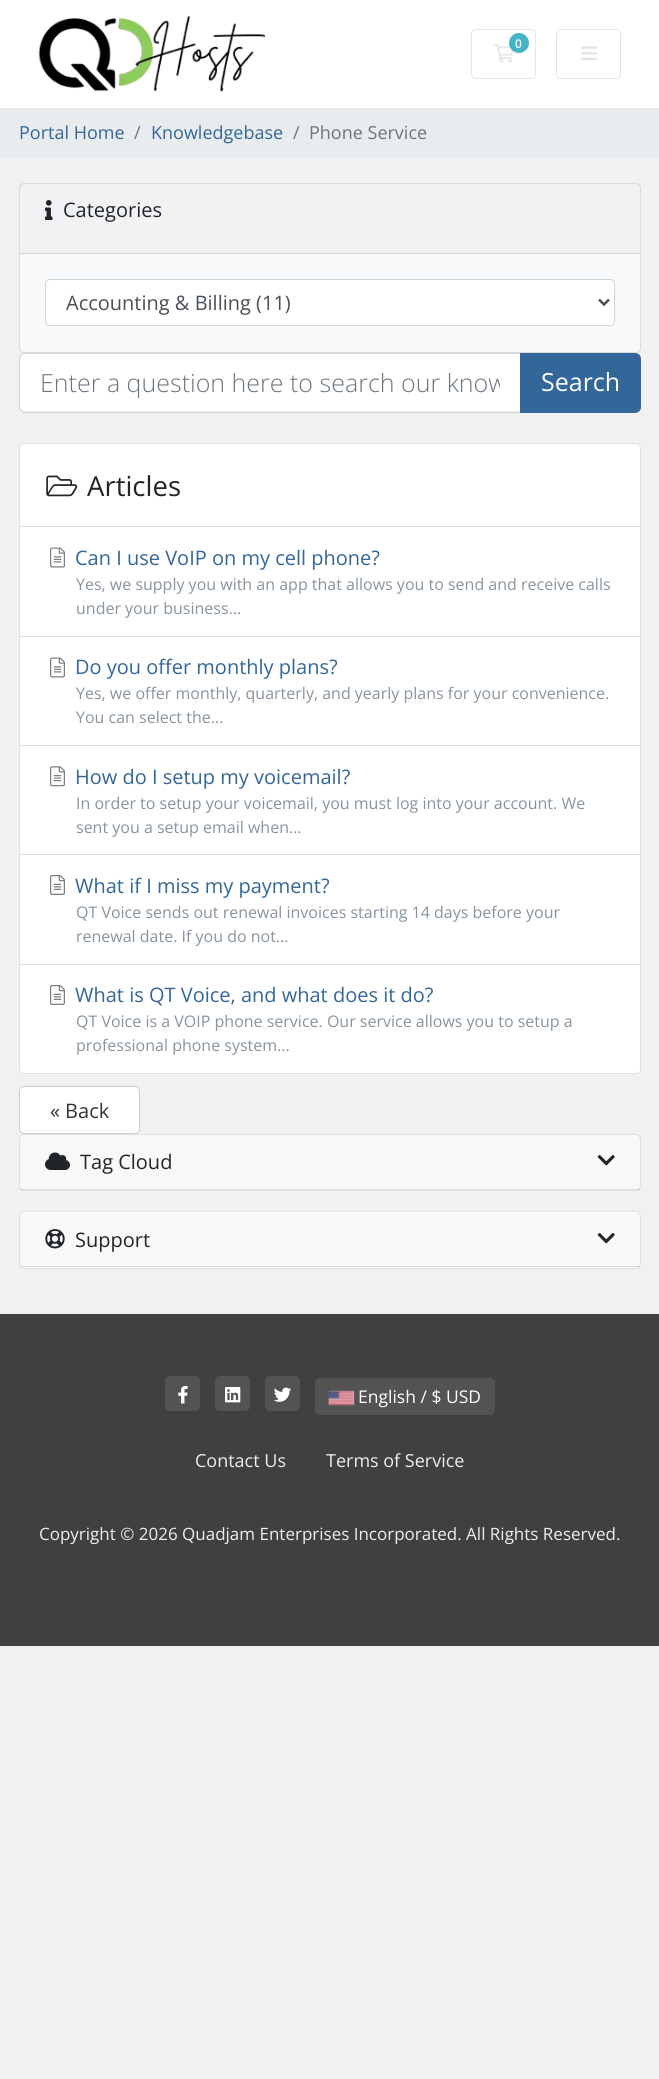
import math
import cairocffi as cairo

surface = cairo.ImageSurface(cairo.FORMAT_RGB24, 659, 2079)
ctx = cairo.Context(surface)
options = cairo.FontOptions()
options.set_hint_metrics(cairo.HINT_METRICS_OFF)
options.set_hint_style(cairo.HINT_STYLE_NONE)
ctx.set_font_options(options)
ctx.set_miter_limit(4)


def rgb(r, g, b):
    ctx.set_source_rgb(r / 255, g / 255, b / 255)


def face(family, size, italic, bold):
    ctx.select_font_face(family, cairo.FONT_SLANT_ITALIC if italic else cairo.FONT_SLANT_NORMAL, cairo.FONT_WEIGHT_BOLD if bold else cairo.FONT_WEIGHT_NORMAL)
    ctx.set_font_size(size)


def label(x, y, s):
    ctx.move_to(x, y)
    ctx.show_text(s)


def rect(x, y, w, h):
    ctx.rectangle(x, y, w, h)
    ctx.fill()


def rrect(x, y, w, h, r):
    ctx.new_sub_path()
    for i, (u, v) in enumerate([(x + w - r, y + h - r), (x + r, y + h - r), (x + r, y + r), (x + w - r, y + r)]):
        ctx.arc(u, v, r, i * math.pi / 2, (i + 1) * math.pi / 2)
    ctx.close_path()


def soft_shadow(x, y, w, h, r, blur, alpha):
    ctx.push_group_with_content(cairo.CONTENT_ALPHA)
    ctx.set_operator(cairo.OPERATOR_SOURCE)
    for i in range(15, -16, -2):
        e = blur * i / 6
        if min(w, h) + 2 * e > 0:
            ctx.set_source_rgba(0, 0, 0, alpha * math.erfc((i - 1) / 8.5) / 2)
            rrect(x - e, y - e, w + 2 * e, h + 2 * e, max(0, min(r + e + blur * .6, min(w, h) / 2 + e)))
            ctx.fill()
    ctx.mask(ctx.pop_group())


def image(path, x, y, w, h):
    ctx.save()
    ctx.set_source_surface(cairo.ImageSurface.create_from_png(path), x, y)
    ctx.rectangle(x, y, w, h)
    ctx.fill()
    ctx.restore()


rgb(241, 241, 241)
ctx.paint()
rgb(255, 255, 255)
rect(0, 0, 659, 108)
image('image0.png', 38, 16, 227, 76)
rrect(471.5, 29.5, 64, 49, 4.5)
rgb(229, 229, 229)
ctx.set_line_width(1)
ctx.stroke()
image('image1.png', 493, 44, 21, 19)
ctx.set_source_rgba(0.09, 0.635, 0.722, 0.8)
ctx.arc(519, 43, 10, 0, 2 * math.pi)
ctx.fill()
face('Open Sans SemiBold', 12, 0, 0)
rgb(255, 255, 255)
label(515, 48, '0')
rrect(556.5, 29.5, 64, 49, 4.5)
rgb(229, 229, 229)
ctx.stroke()
image('image2.png', 581, 46, 16, 14)
rgb(233, 236, 239)
rect(0, 108, 659, 50)
face('Open Sans', 18, 0, 0)
rgb(51, 102, 153)
label(19, 139, 'Portal Home')
rgb(108, 117, 125)
label(134, 139, '/')
rgb(51, 102, 153)
label(151, 139, 'Knowledgebase')
rgb(108, 117, 125)
label(293, 139, '/')
label(309, 139, 'Phone Service')
rgb(248, 249, 250)
rrect(19, 183, 622, 170, 5)
ctx.fill()
rrect(19.5, 183.5, 621, 169, 4.5)
ctx.set_source_rgba(0, 0, 0, 0.12)
ctx.stroke()
ctx.set_source_rgba(0, 0, 0, 0.03)
rect(20, 184, 620, 69)
rgb(210, 211, 212)
rect(20, 253, 620, 1)
image('image3.png', 45, 200, 8, 20)
face('Open Sans', 20, 0, 0)
rgb(33, 37, 41)
label(63, 217, 'Categories')
rgb(255, 255, 255)
rrect(45.5, 279.5, 569, 46, 4.5)
ctx.fill_preserve()
rgb(206, 212, 218)
ctx.stroke()
ctx.new_path()
ctx.move_to(599, 299.5)
ctx.line_to(604, 304.5)
ctx.line_to(609, 299.5)
rgb(73, 80, 87)
ctx.set_line_width(2.5)
ctx.stroke()
label(66, 310, 'Accounting & Billing (11)')
rgb(255, 255, 255)
ctx.new_path()
ctx.move_to(25, 354)
ctx.line_to(520, 354)
ctx.line_to(520, 411)
ctx.line_to(25, 411)
ctx.curve_to(22, 411, 20, 409, 20, 406)
ctx.line_to(20, 359)
ctx.curve_to(20, 356, 22, 354, 25, 354)
ctx.close_path()
ctx.fill()
ctx.new_path()
ctx.move_to(25, 353.5)
ctx.line_to(520.5, 353.5)
ctx.line_to(520.5, 412.5)
ctx.line_to(25, 412.5)
ctx.curve_to(22, 412.5, 19.5, 410, 19.5, 407)
ctx.line_to(19.5, 359)
ctx.curve_to(19.5, 356, 22, 353.5, 25, 353.5)
ctx.close_path()
rgb(206, 212, 218)
ctx.set_line_width(1)
ctx.stroke()
ctx.save()
ctx.rectangle(40, 365, 460, 34)
ctx.clip()
face('Open Sans Light', 25, 0, 0)
rgb(108, 117, 125)
label(40, 392, 'Enter a question here to search our know')
ctx.restore()
rgb(51, 102, 153)
ctx.new_path()
ctx.move_to(520.5, 353.5)
ctx.line_to(635, 353.5)
ctx.curve_to(638, 353.5, 640.5, 356, 640.5, 359)
ctx.line_to(640.5, 407)
ctx.curve_to(640.5, 410, 638, 412.5, 635, 412.5)
ctx.line_to(520.5, 412.5)
ctx.close_path()
ctx.fill_preserve()
ctx.stroke()
face('Open Sans', 25, 0, 0)
rgb(255, 255, 255)
label(541, 391, 'Search')
rrect(19, 443, 622, 631, 5)
ctx.fill()
rrect(19.5, 443.5, 621, 630, 4.5)
ctx.set_source_rgba(0, 0, 0, 0.12)
ctx.stroke()
image('image4.png', 46, 475, 32, 22)
face('Open Sans', 27.5, 0, 0)
rgb(33, 37, 41)
label(87, 496, 'Articles')
rgb(223, 223, 223)
rect(20, 526, 620, 1)
rect(20, 636, 620, 1)
image('image5.png', 50, 547, 15, 21)
face('Open Sans', 20, 0, 0)
rgb(51, 102, 153)
label(75, 565, 'Can I use VoIP on my cell phone?')
face('Open Sans', 16, 0, 0)
rgb(135, 147, 159)
label(76, 590, 'Yes, we supply you with an app that allows you to send and receive calls')
label(76, 614, 'under your business...')
rgb(223, 223, 223)
rect(20, 745, 620, 1)
image('image5.png', 50, 657, 15, 21)
face('Open Sans', 20, 0, 0)
rgb(51, 102, 153)
label(75, 674, 'Do you offer monthly plans?')
face('Open Sans', 16, 0, 0)
rgb(135, 147, 159)
label(76, 699, 'Yes, we offer monthly, quarterly, and yearly plans for your convenience.')
label(76, 723, 'You can select the...')
rgb(223, 223, 223)
rect(20, 854, 620, 1)
image('image6.png', 50, 766, 15, 21)
face('Open Sans', 20, 0, 0)
rgb(51, 102, 153)
label(75, 784, 'How do I setup my voicemail?')
face('Open Sans', 16, 0, 0)
rgb(135, 147, 159)
label(76, 809, 'In order to setup your voicemail, you must log into your account. We')
label(76, 833, 'sent you a setup email when...')
rgb(223, 223, 223)
rect(20, 964, 620, 1)
image('image7.png', 50, 875, 15, 20)
face('Open Sans', 20, 0, 0)
rgb(51, 102, 153)
label(75, 893, 'What if I miss my payment?')
face('Open Sans', 16, 0, 0)
rgb(135, 147, 159)
label(76, 918, 'QT Voice sends out renewal invoices starting 14 days before your')
label(76, 942, 'renewal date. If you do not...')
rgb(255, 255, 255)
ctx.new_path()
ctx.move_to(20, 965)
ctx.line_to(640, 965)
ctx.line_to(640, 1069)
ctx.curve_to(640, 1071, 638, 1073, 636, 1073)
ctx.line_to(24, 1073)
ctx.curve_to(22, 1073, 20, 1071, 20, 1069)
ctx.close_path()
ctx.fill()
image('image7.png', 50, 985, 15, 20)
face('Open Sans', 20, 0, 0)
rgb(51, 102, 153)
label(75, 1002, 'What is QT Voice, and what does it do?')
face('Open Sans', 16, 0, 0)
rgb(135, 147, 159)
label(76, 1027, 'QT Voice is a VOIP phone service. Our service allows you to setup a')
label(76, 1051, 'professional phone system...')
rgb(255, 255, 255)
rrect(19.5, 1086.5, 120, 47, 4.5)
ctx.fill_preserve()
rgb(204, 204, 204)
ctx.stroke()
face('Open Sans', 20, 0, 0)
rgb(51, 51, 51)
label(50, 1118, '« Back')
rgb(255, 255, 255)
rrect(19, 1134, 622, 57, 5)
ctx.fill()
rrect(19.5, 1134.5, 621, 56, 4.5)
ctx.set_source_rgba(0, 0, 0, 0.12)
ctx.stroke()
ctx.set_source_rgba(0, 0, 0, 0.03)
rect(20, 1135, 620, 55)
ctx.set_source_rgba(0, 0, 0, 0.12)
rect(20, 1189, 620, 1)
image('image8.png', 45, 1152, 25, 18)
rgb(33, 37, 41)
label(80, 1169, 'Tag Cloud')
image('image9.png', 597, 1155, 18, 11)
rgb(255, 255, 255)
rrect(19, 1211, 622, 58, 5)
ctx.fill()
rrect(19.5, 1211.5, 621, 57, 4.5)
ctx.set_source_rgba(0, 0, 0, 0.12)
ctx.stroke()
ctx.set_source_rgba(0, 0, 0, 0.03)
rect(20, 1213, 620, 55)
ctx.set_source_rgba(0, 0, 0, 0.12)
rect(20, 1266, 620, 1)
image('image10.png', 45, 1229, 20, 20)
rgb(33, 37, 41)
label(75, 1247, 'Support')
image('image11.png', 597, 1233, 18, 11)
rgb(64, 64, 64)
rect(0, 1314, 659, 332)
rgb(83, 83, 83)
rrect(165, 1376, 35, 35, 5)
ctx.fill()
image('image12.png', 178, 1385, 10, 19)
rrect(215, 1376, 35, 35, 5)
ctx.fill()
image('image13.png', 225, 1387, 16, 16)
rrect(265, 1376, 35, 35, 5)
ctx.fill()
image('image14.png', 274, 1387, 18, 15)
rrect(315, 1378, 180, 37, 5)
ctx.fill()
rgb(136, 136, 136)
soft_shadow(329, 1391, 25, 14, 0, 0.5, 1)
rgb(219, 219, 219)
rect(329, 1391, 25, 14)
image('image15.png', 328, 1391, 26, 14)
face('Open Sans', 17.5, 0, 0)
rgb(255, 255, 255)
label(358, 1403, 'English / $ USD')
face('Open Sans', 18, 0, 0)
rgb(238, 238, 238)
label(195, 1467, 'Contact Us')
label(326, 1467, 'Terms of Service')
face('Open Sans', 17, 0, 0)
label(39, 1540, 'Copyright © 2026 Quadjam Enterprises Incorporated. All Rights Reserved.')
surface.write_to_png('render.png')
